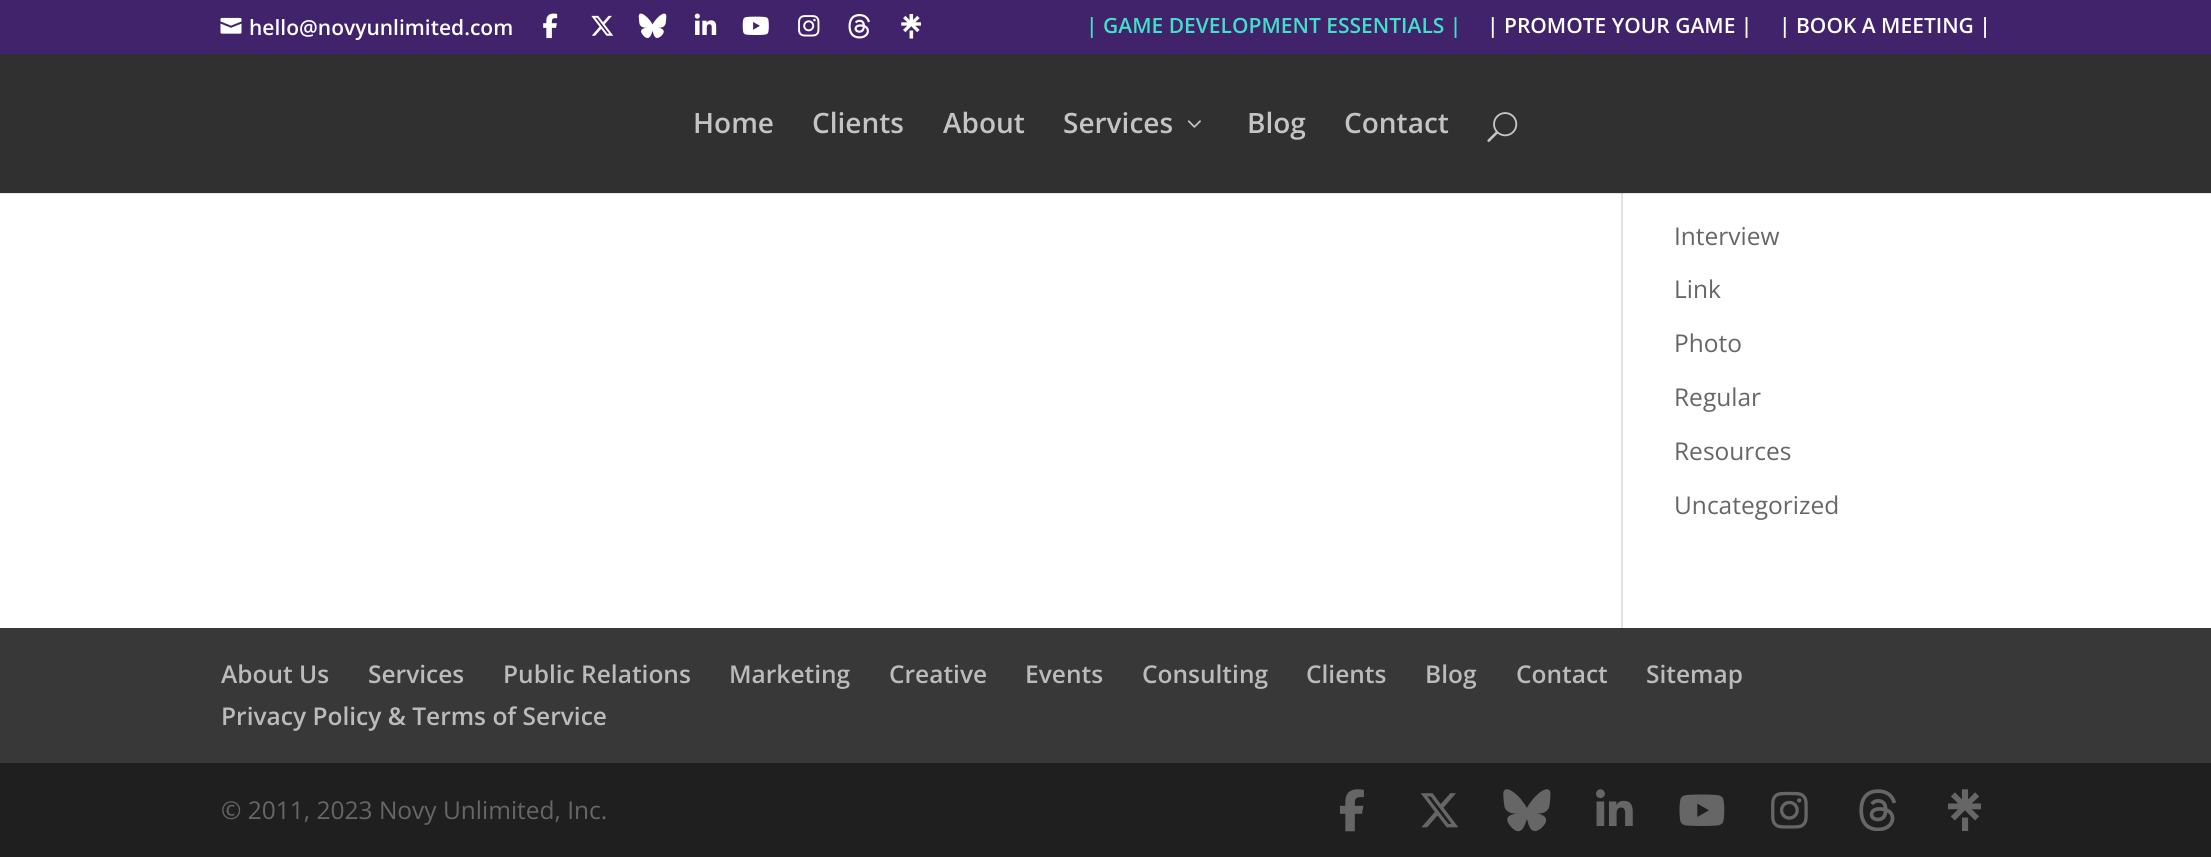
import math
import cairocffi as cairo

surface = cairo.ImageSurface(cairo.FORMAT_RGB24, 2211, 857)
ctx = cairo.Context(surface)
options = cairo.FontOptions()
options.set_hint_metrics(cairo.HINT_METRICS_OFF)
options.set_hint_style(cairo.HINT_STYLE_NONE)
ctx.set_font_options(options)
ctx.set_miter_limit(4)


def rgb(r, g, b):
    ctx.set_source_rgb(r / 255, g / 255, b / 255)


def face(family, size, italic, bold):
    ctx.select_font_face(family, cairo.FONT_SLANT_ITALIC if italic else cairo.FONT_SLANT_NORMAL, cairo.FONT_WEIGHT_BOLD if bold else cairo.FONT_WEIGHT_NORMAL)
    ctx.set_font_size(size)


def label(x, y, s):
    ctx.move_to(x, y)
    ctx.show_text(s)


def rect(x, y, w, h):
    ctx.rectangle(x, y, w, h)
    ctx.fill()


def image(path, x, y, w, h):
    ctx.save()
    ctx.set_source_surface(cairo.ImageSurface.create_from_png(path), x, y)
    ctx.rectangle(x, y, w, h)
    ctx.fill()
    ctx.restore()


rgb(255, 255, 255)
ctx.paint()
rgb(230, 230, 230)
rect(0, 193, 2211, 1)
rgb(65, 35, 107)
rect(0, 0, 2211, 54)
image('image0.png', 220, 17, 22, 17)
face('Open Sans SemiBold', 21, 0, 0)
rgb(255, 255, 255)
label(249, 35, 'hello@novyunlimited.com')
image('image1.png', 543, 13, 15, 26)
image('image2.png', 591, 15, 23, 21)
image('image3.png', 638, 13, 29, 26)
image('image4.png', 694, 13, 23, 22)
image('image5.png', 742, 16, 27, 19)
image('image6.png', 798, 15, 22, 22)
image('image7.png', 848, 14, 22, 25)
image('image8.png', 901, 14, 20, 25)
rgb(64, 224, 201)
label(1086, 33, '| GAME DEVELOPMENT ESSENTIALS |')
rgb(255, 255, 255)
label(1487, 33, '| PROMOTE YOUR GAME |')
label(1779, 33, '| BOOK A MEETING |')
rgb(48, 48, 48)
rect(0, 54, 2211, 139)
face('Open Sans SemiBold', 28, 0, 0)
rgb(196, 196, 196)
label(693, 133, 'Home')
label(812, 133, 'Clients')
label(943, 133, 'About')
label(1063, 133, 'Services')
image('image9.png', 1187, 120, 14, 8)
label(1247, 133, 'Blog')
label(1344, 133, 'Contact')
image('image10.png', 1487, 112, 31, 30)
rgb(226, 226, 226)
rect(1621, 194, 2, 434)
rgb(203, 203, 203)
rect(1621, 193, 2, 1)
face('Open Sans', 24.5, 0, 0)
rgb(102, 102, 102)
label(1674, 245, 'Interview')
label(1674, 298, 'Link')
label(1674, 352, 'Photo')
label(1674, 406, 'Regular')
label(1674, 460, 'Resources')
label(1674, 514, 'Uncategorized')
rgb(56, 56, 56)
rect(0, 628, 2211, 135)
face('Open Sans SemiBold', 24.5, 0, 0)
rgb(187, 187, 187)
label(221, 683, 'About Us')
label(368, 683, 'Services')
label(503, 683, 'Public Relations')
label(729, 683, 'Marketing')
label(889, 683, 'Creative')
label(1025, 683, 'Events')
label(1142, 683, 'Consulting')
label(1306, 683, 'Clients')
label(1425, 683, 'Blog')
label(1516, 683, 'Contact')
label(1646, 683, 'Sitemap')
label(221, 725, 'Privacy Policy & Terms of Service')
rgb(31, 31, 31)
rect(0, 763, 2211, 94)
face('Open Sans', 24.5, 0, 0)
rgb(102, 102, 102)
label(221, 819, '© 2011, 2023 Novy Unlimited, Inc.')
image('image11.png', 1339, 789, 25, 43)
image('image12.png', 1420, 793, 39, 35)
image('image13.png', 1503, 789, 48, 43)
image('image14.png', 1596, 789, 37, 37)
image('image15.png', 1679, 794, 46, 32)
image('image16.png', 1771, 791, 37, 38)
image('image17.png', 1859, 789, 37, 42)
image('image18.png', 1948, 789, 33, 42)
surface.write_to_png('render.png')
